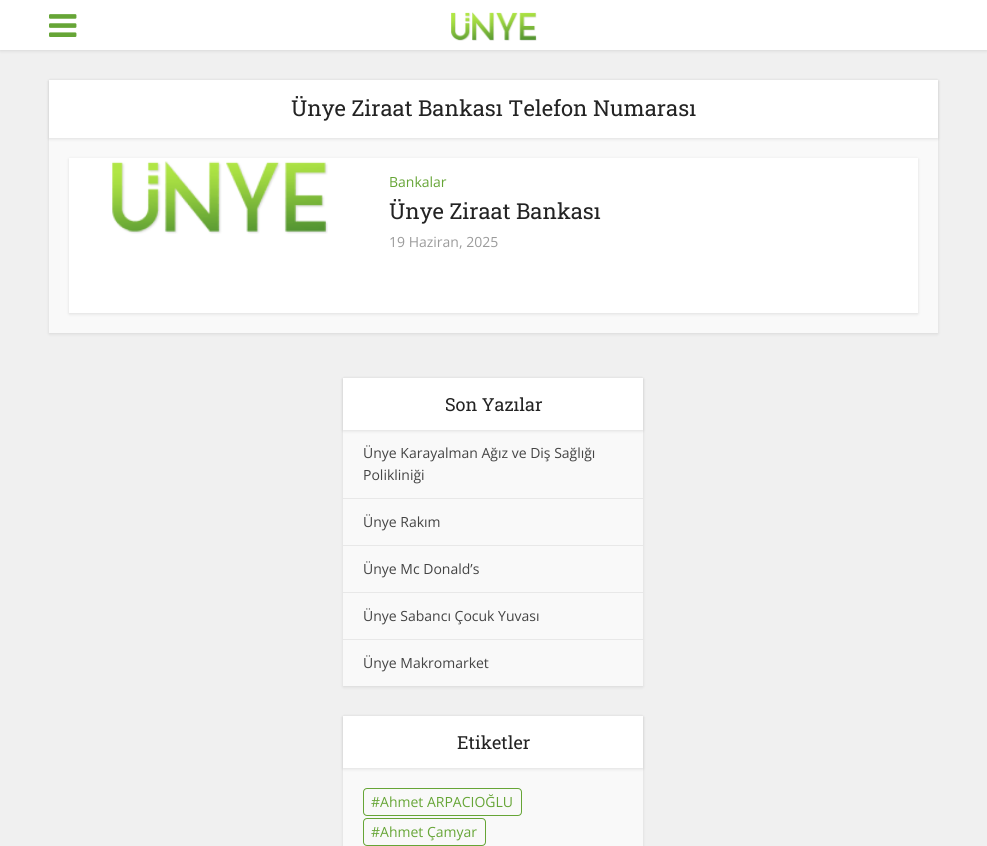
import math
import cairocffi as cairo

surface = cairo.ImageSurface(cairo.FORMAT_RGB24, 987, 846)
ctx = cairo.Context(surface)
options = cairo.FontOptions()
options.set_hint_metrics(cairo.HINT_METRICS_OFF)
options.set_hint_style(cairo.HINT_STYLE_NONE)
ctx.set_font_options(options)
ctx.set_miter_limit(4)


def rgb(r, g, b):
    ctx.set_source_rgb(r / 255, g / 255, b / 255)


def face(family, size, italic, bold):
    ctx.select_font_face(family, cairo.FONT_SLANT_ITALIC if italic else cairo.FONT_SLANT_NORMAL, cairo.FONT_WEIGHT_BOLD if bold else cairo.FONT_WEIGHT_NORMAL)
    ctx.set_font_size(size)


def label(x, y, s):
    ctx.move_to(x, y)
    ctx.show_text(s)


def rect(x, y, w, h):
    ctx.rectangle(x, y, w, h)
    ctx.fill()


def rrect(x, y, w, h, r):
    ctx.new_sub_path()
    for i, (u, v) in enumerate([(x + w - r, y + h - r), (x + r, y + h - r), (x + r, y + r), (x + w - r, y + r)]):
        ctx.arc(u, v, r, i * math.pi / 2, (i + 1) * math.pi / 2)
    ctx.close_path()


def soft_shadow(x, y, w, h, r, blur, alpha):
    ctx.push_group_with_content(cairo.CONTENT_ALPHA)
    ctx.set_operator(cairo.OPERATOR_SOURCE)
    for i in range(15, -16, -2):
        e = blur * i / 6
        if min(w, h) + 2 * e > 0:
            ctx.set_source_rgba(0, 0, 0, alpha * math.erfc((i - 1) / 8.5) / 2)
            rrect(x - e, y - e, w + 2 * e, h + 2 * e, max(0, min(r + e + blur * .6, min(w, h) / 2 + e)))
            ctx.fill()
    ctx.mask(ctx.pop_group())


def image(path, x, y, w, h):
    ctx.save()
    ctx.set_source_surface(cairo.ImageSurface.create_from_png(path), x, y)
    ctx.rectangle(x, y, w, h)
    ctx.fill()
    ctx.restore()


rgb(240, 240, 240)
ctx.paint()
rgb(0, 0, 0)
soft_shadow(0, 1, 987, 50, 0, 1.5, 0.1)
rgb(255, 255, 255)
rect(0, 0, 987, 50)
image('image0.png', 49, 14, 28, 23)
image('image1.png', 451, 12, 86, 29)
rgb(0, 0, 0)
soft_shadow(49, 81, 889, 253, 0, 1.5, 0.1)
rgb(249, 249, 249)
rect(49, 138, 889, 195)
rgb(0, 0, 0)
soft_shadow(49, 81, 889, 58, 0, 1.5, 0.1)
rgb(255, 255, 255)
rect(49, 80, 889, 58)
face('Roboto Slab', 22, 0, 0)
rgb(35, 35, 35)
label(291, 116, 'Ünye Ziraat Bankası Telefon Numarası')
rgb(0, 0, 0)
soft_shadow(69, 159, 849, 155, 0, 1.5, 0.1)
rgb(255, 255, 255)
rect(69, 158, 849, 155)
image('image2.png', 112, 161, 216, 73)
face('Open Sans', 14, 0, 0)
rgb(102, 165, 54)
label(389, 187, 'Bankalar')
face('Roboto Slab', 22, 0, 0)
rgb(35, 35, 35)
label(389, 219, 'Ünye Ziraat Bankası')
face('Open Sans', 14, 0, 0)
rgb(155, 155, 155)
label(389, 247, '19 Haziran, 2025')
rgb(0, 0, 0)
soft_shadow(343, 379, 300, 308, 0, 1.5, 0.1)
rgb(249, 249, 249)
rect(343, 430, 300, 256)
rgb(0, 0, 0)
soft_shadow(343, 379, 300, 52, 0, 1.5, 0.1)
rgb(255, 255, 255)
rect(343, 378, 300, 52)
face('Roboto Slab', 18, 0, 0)
rgb(35, 35, 35)
label(445, 411, 'Son Yazılar')
rgb(232, 232, 232)
rect(343, 498, 300, 1)
face('Open Sans', 14, 0, 0)
rgb(68, 68, 68)
label(363, 458, 'Ünye Karayalman Ağız ve Diş Sağlığı')
label(363, 480, 'Polikliniği')
rgb(232, 232, 232)
rect(343, 545, 300, 1)
rgb(68, 68, 68)
label(363, 527, 'Ünye Rakım')
rgb(232, 232, 232)
rect(343, 592, 300, 1)
rgb(68, 68, 68)
label(363, 574, 'Ünye Mc Donald’s')
rgb(232, 232, 232)
rect(343, 639, 300, 1)
rgb(68, 68, 68)
label(363, 621, 'Ünye Sabancı Çocuk Yuvası')
label(363, 668, 'Ünye Makromarket')
rgb(0, 0, 0)
soft_shadow(343, 717, 300, 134, 0, 1.5, 0.1)
rgb(249, 249, 249)
rect(343, 768, 300, 78)
rgb(0, 0, 0)
soft_shadow(343, 717, 300, 52, 0, 1.5, 0.1)
rgb(255, 255, 255)
rect(343, 716, 300, 52)
face('Roboto Slab', 18, 0, 0)
rgb(35, 35, 35)
label(457, 749, 'Etiketler')
rrect(363.5, 788.5, 158, 27, 3.5)
rgb(102, 165, 54)
ctx.set_line_width(1)
ctx.stroke()
face('Open Sans', 14, 0, 0)
label(371, 807, '#Ahmet ARPACIOĞLU')
rrect(363.5, 818.5, 122, 27, 3.5)
ctx.stroke()
label(371, 837, '#Ahmet Çamyar')
surface.write_to_png('render.png')
